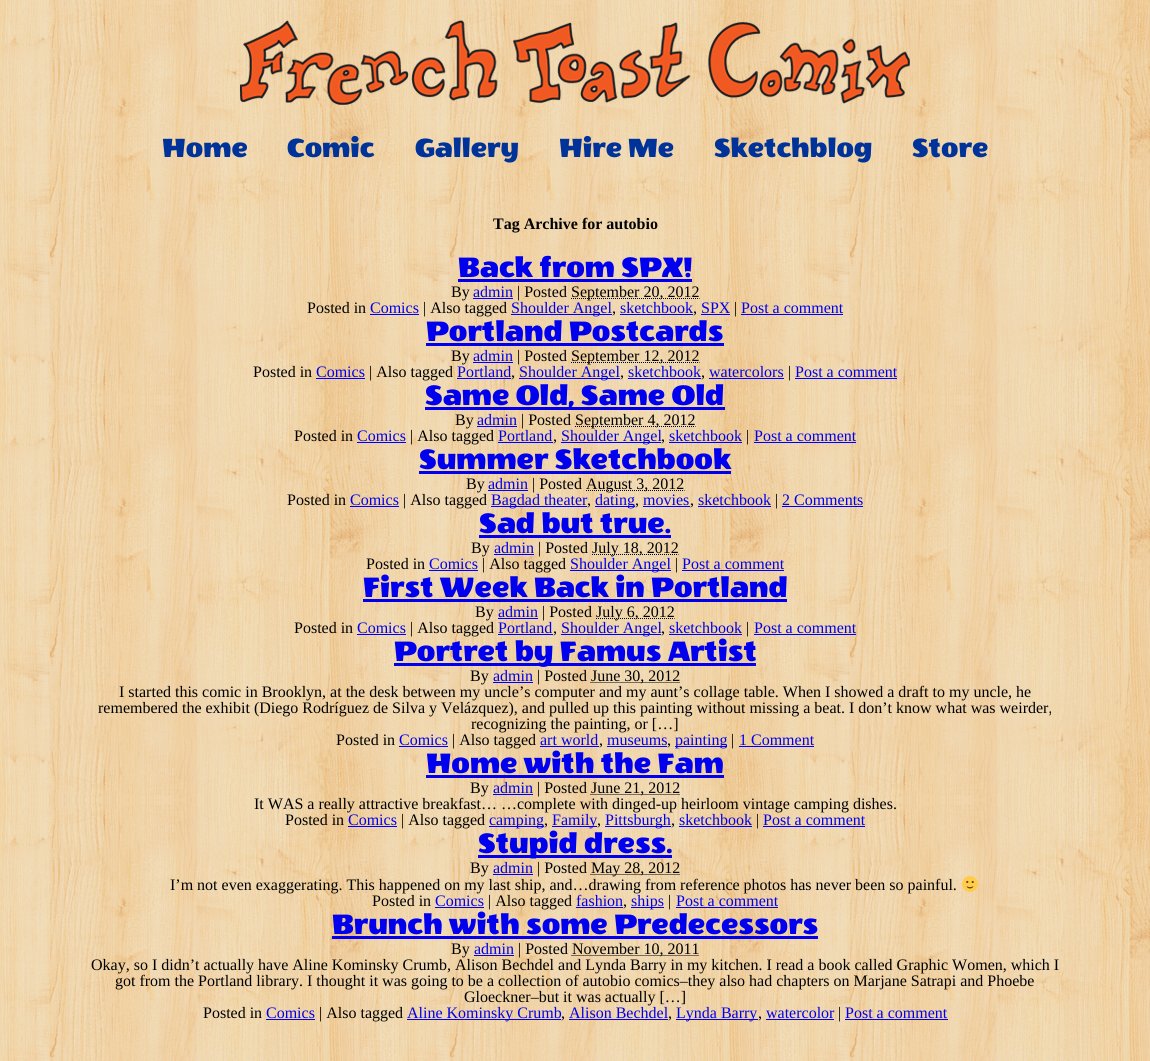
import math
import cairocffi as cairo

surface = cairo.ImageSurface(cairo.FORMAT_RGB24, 1150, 1061)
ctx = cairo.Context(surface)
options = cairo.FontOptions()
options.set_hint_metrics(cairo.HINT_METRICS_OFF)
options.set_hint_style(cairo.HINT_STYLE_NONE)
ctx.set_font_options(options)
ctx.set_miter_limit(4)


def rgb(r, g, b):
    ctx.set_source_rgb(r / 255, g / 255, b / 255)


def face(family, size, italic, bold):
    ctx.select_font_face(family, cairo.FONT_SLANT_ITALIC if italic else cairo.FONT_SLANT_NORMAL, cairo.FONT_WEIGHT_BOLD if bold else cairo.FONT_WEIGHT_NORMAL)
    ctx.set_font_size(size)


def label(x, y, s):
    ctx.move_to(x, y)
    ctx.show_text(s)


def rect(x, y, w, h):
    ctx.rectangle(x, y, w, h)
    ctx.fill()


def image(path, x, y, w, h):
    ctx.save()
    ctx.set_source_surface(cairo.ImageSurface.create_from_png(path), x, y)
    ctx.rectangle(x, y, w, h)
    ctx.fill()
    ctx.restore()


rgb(255, 255, 255)
ctx.paint()
image('image0.png', 0, 0, 1150, 1061)
image('image1.png', 240, 20, 670, 85)
face('Wendy One', 30, 0, 0)
rgb(0, 51, 153)
label(162, 157, 'Home')
label(287, 157, 'Comic')
label(415, 157, 'Gallery')
label(559, 157, 'Hire Me')
label(714, 157, 'Sketchblog')
label(912, 157, 'Store')
face('Liberation Serif', 16, 0, 1)
rgb(0, 0, 0)
label(493, 229, 'Tag Archive for autobio')
face('Wendy One', 32, 0, 0)
rgb(0, 0, 238)
label(458, 277, 'Back from SPX!')
rect(458, 279, 234, 3)
face('Liberation Serif', 16, 0, 0)
rgb(0, 0, 0)
label(451, 297, 'By')
rgb(0, 0, 238)
label(473, 297, 'admin')
rect(473, 298, 40, 1)
rgb(0, 0, 0)
label(517, 297, '| Posted')
ctx.new_path()
ctx.move_to(571, 298.5)
ctx.line_to(699.5, 298.5)
ctx.set_line_width(1)
ctx.set_dash([1, 1])
ctx.stroke()
label(571, 297, 'September 20, 2012')
label(307, 313, 'Posted in')
rgb(0, 0, 238)
label(370, 313, 'Comics')
rect(370, 314, 49, 1)
rgb(0, 0, 0)
label(423, 313, '| Also tagged')
rgb(0, 0, 238)
rect(511, 314, 101, 1)
label(511, 313, 'Shoulder Angel')
rgb(0, 0, 0)
label(612, 313, ',')
rgb(0, 0, 238)
label(620, 313, 'sketchbook')
rgb(0, 0, 0)
label(693, 313, ',')
rgb(0, 0, 238)
rect(620, 314, 73, 1)
rect(701, 314, 29, 1)
label(701, 313, 'SPX')
rgb(0, 0, 0)
label(734, 313, '|')
rgb(0, 0, 238)
label(741, 313, 'Post a comment')
rect(741, 314, 102, 1)
face('Wendy One', 32, 0, 0)
label(426, 341, 'Portland Postcards')
rect(426, 343, 298, 3)
face('Liberation Serif', 16, 0, 0)
rgb(0, 0, 0)
label(451, 361, 'By')
rgb(0, 0, 238)
label(473, 361, 'admin')
rect(473, 362, 40, 1)
rgb(0, 0, 0)
label(517, 361, '| Posted')
ctx.new_path()
ctx.move_to(571, 362.5)
ctx.line_to(699.5, 362.5)
ctx.stroke()
label(571, 361, 'September 12, 2012')
label(253, 377, 'Posted in')
rgb(0, 0, 238)
label(316, 377, 'Comics')
rect(316, 378, 49, 1)
rgb(0, 0, 0)
label(369, 377, '| Also tagged')
rgb(0, 0, 238)
label(457, 377, 'Portland')
rgb(0, 0, 0)
label(511, 377, ',')
rgb(0, 0, 238)
rect(457, 378, 54, 1)
rect(519, 378, 101, 1)
label(519, 377, 'Shoulder Angel')
rgb(0, 0, 0)
label(620, 377, ',')
rgb(0, 0, 238)
label(628, 377, 'sketchbook')
rgb(0, 0, 0)
label(701, 377, ',')
rgb(0, 0, 238)
rect(628, 378, 73, 1)
rect(709, 378, 75, 1)
label(709, 377, 'watercolors')
rgb(0, 0, 0)
label(788, 377, '|')
rgb(0, 0, 238)
label(795, 377, 'Post a comment')
rect(795, 378, 102, 1)
rect(425, 407, 300, 3)
face('Wendy One', 32, 0, 0)
label(425, 405, 'Same Old, Same Old')
face('Liberation Serif', 16, 0, 0)
rgb(0, 0, 0)
label(455, 425, 'By')
rgb(0, 0, 238)
label(477, 425, 'admin')
rect(477, 426, 40, 1)
rgb(0, 0, 0)
label(521, 425, '| Posted')
ctx.new_path()
ctx.move_to(575, 426.5)
ctx.line_to(695.5, 426.5)
ctx.stroke()
label(575, 425, 'September 4, 2012')
label(294, 441, 'Posted in')
rgb(0, 0, 238)
label(357, 441, 'Comics')
rect(357, 442, 49, 1)
rgb(0, 0, 0)
label(410, 441, '| Also tagged')
rgb(0, 0, 238)
label(498, 441, 'Portland')
rgb(0, 0, 0)
label(553, 441, ',')
rgb(0, 0, 238)
rect(498, 442, 55, 1)
rect(561, 442, 100, 1)
label(561, 441, 'Shoulder Angel')
rgb(0, 0, 0)
label(661, 441, ',')
rgb(0, 0, 238)
rect(669, 442, 73, 1)
label(669, 441, 'sketchbook')
rgb(0, 0, 0)
label(746, 441, '|')
rgb(0, 0, 238)
label(754, 441, 'Post a comment')
rect(754, 442, 102, 1)
face('Wendy One', 32, 0, 0)
label(419, 469, 'Summer Sketchbook')
rect(419, 471, 312, 3)
face('Liberation Serif', 16, 0, 0)
rgb(0, 0, 0)
label(466, 489, 'By')
rgb(0, 0, 238)
label(488, 489, 'admin')
rect(488, 490, 40, 1)
rgb(0, 0, 0)
label(532, 489, '| Posted')
ctx.new_path()
ctx.move_to(586, 490.5)
ctx.line_to(684.5, 490.5)
ctx.stroke()
label(586, 489, 'August 3, 2012')
label(287, 505, 'Posted in')
rgb(0, 0, 238)
label(350, 505, 'Comics')
rect(350, 506, 49, 1)
rgb(0, 0, 0)
label(403, 505, '| Also tagged')
rgb(0, 0, 238)
rect(491, 506, 96, 1)
label(491, 505, 'Bagdad theater')
rgb(0, 0, 0)
label(587, 505, ',')
rgb(0, 0, 238)
rect(595, 506, 40, 1)
label(595, 505, 'dating')
rgb(0, 0, 0)
label(635, 505, ',')
rgb(0, 0, 238)
label(643, 505, 'movies')
rgb(0, 0, 0)
label(690, 505, ',')
rgb(0, 0, 238)
rect(643, 506, 47, 1)
rect(698, 506, 73, 1)
label(698, 505, 'sketchbook')
rgb(0, 0, 0)
label(775, 505, '|')
rgb(0, 0, 238)
label(782, 505, '2 Comments')
rect(782, 506, 81, 1)
face('Wendy One', 32, 0, 0)
label(479, 533, 'Sad but true.')
rect(479, 535, 192, 3)
face('Liberation Serif', 16, 0, 0)
rgb(0, 0, 0)
label(471, 553, 'By')
rgb(0, 0, 238)
label(494, 553, 'admin')
rect(494, 554, 40, 1)
rgb(0, 0, 0)
label(538, 553, '| Posted')
ctx.new_path()
ctx.move_to(592, 554.5)
ctx.line_to(678.5, 554.5)
ctx.stroke()
label(592, 553, 'July 18, 2012')
label(366, 569, 'Posted in')
rgb(0, 0, 238)
label(429, 569, 'Comics')
rect(429, 570, 49, 1)
rgb(0, 0, 0)
label(482, 569, '| Also tagged')
rgb(0, 0, 238)
rect(570, 570, 101, 1)
label(570, 569, 'Shoulder Angel')
rgb(0, 0, 0)
label(675, 569, '|')
rgb(0, 0, 238)
label(682, 569, 'Post a comment')
rect(682, 570, 102, 1)
face('Wendy One', 32, 0, 0)
label(363, 597, 'First Week Back in Portland')
rect(363, 599, 424, 3)
face('Liberation Serif', 16, 0, 0)
rgb(0, 0, 0)
label(475, 617, 'By')
rgb(0, 0, 238)
label(498, 617, 'admin')
rect(498, 618, 40, 1)
rgb(0, 0, 0)
label(542, 617, '| Posted')
ctx.new_path()
ctx.move_to(596, 618.5)
ctx.line_to(674.5, 618.5)
ctx.stroke()
label(596, 617, 'July 6, 2012')
label(294, 633, 'Posted in')
rgb(0, 0, 238)
label(357, 633, 'Comics')
rect(357, 634, 49, 1)
rgb(0, 0, 0)
label(410, 633, '| Also tagged')
rgb(0, 0, 238)
label(498, 633, 'Portland')
rgb(0, 0, 0)
label(553, 633, ',')
rgb(0, 0, 238)
rect(498, 634, 55, 1)
rect(561, 634, 100, 1)
label(561, 633, 'Shoulder Angel')
rgb(0, 0, 0)
label(661, 633, ',')
rgb(0, 0, 238)
rect(669, 634, 73, 1)
label(669, 633, 'sketchbook')
rgb(0, 0, 0)
label(746, 633, '|')
rgb(0, 0, 238)
label(754, 633, 'Post a comment')
rect(754, 634, 102, 1)
rect(394, 663, 362, 3)
face('Wendy One', 32, 0, 0)
label(394, 661, 'Portret by Famus Artist')
face('Liberation Serif', 16, 0, 0)
rgb(0, 0, 0)
label(470, 681, 'By')
rgb(0, 0, 238)
label(493, 681, 'admin')
rect(493, 682, 40, 1)
rgb(0, 0, 0)
label(537, 681, '| Posted')
ctx.new_path()
ctx.move_to(590.5, 682.5)
ctx.line_to(680, 682.5)
ctx.stroke()
label(591, 681, 'June 30, 2012')
label(119, 697, 'I started this comic in Brooklyn, at the desk between my uncle’s computer and my aunt’s collage table. When I showed a draft to my uncle, he')
label(98, 713, 'remembered the exhibit (Diego Rodríguez de Silva y Velázquez), and pulled up this painting without missing a beat. I don’t know what was weirder,')
label(471, 729, 'recognizing the painting, or […]')
label(336, 745, 'Posted in')
rgb(0, 0, 238)
label(399, 745, 'Comics')
rect(399, 746, 49, 1)
rgb(0, 0, 0)
label(452, 745, '| Also tagged')
rgb(0, 0, 238)
label(540, 745, 'art world')
rgb(0, 0, 0)
label(599, 745, ',')
rgb(0, 0, 238)
rect(540, 746, 59, 1)
label(607, 745, 'museums')
rgb(0, 0, 0)
label(667, 745, ',')
rgb(0, 0, 238)
rect(607, 746, 60, 1)
rect(675, 746, 52, 1)
label(675, 745, 'painting')
rgb(0, 0, 0)
label(731, 745, '|')
rgb(0, 0, 238)
label(739, 745, '1 Comment')
rect(739, 746, 75, 1)
face('Wendy One', 32, 0, 0)
label(426, 773, 'Home with the Fam')
rect(426, 775, 298, 3)
face('Liberation Serif', 16, 0, 0)
rgb(0, 0, 0)
label(470, 793, 'By')
rgb(0, 0, 238)
label(493, 793, 'admin')
rect(493, 794, 40, 1)
rgb(0, 0, 0)
label(537, 793, '| Posted')
ctx.new_path()
ctx.move_to(590.5, 794.5)
ctx.line_to(680, 794.5)
ctx.stroke()
label(591, 793, 'June 21, 2012')
label(254, 809, 'It WAS a really attractive breakfast… …complete with dinged-up heirloom vintage camping dishes.')
label(285, 825, 'Posted in')
rgb(0, 0, 238)
label(348, 825, 'Comics')
rect(348, 826, 49, 1)
rgb(0, 0, 0)
label(401, 825, '| Also tagged')
rgb(0, 0, 238)
rect(489, 826, 55, 1)
label(489, 825, 'camping')
rgb(0, 0, 0)
label(544, 825, ',')
rgb(0, 0, 238)
rect(552, 826, 45, 1)
label(552, 825, 'Family')
rgb(0, 0, 0)
label(597, 825, ',')
rgb(0, 0, 238)
rect(605, 826, 66, 1)
label(605, 825, 'Pittsburgh')
rgb(0, 0, 0)
label(671, 825, ',')
rgb(0, 0, 238)
rect(679, 826, 73, 1)
label(679, 825, 'sketchbook')
rgb(0, 0, 0)
label(756, 825, '|')
rgb(0, 0, 238)
label(763, 825, 'Post a comment')
rect(763, 826, 102, 1)
rect(478, 855, 194, 3)
face('Wendy One', 32, 0, 0)
label(478, 853, 'Stupid dress.')
face('Liberation Serif', 16, 0, 0)
rgb(0, 0, 0)
label(470, 873, 'By')
rgb(0, 0, 238)
label(493, 873, 'admin')
rect(493, 874, 40, 1)
rgb(0, 0, 0)
label(537, 873, '| Posted')
ctx.new_path()
ctx.move_to(590.5, 874.5)
ctx.line_to(680, 874.5)
ctx.stroke()
label(591, 873, 'May 28, 2012')
label(170, 890, 'I’m not even exaggerating. This happened on my last ship, and…drawing from reference photos has never been so painful.')
image('image2.png', 962, 876, 16, 16)
label(372, 906, 'Posted in')
rgb(0, 0, 238)
label(435, 906, 'Comics')
rect(435, 907, 49, 1)
rgb(0, 0, 0)
label(488, 906, '| Also tagged')
rgb(0, 0, 238)
label(576, 906, 'fashion')
rgb(0, 0, 0)
label(623, 906, ',')
rgb(0, 0, 238)
rect(576, 907, 47, 1)
rect(631, 907, 33, 1)
label(631, 906, 'ships')
rgb(0, 0, 0)
label(668, 906, '|')
rgb(0, 0, 238)
label(676, 906, 'Post a comment')
rect(676, 907, 102, 1)
face('Wendy One', 32, 0, 0)
label(332, 934, 'Brunch with some Predecessors')
rect(332, 936, 486, 3)
face('Liberation Serif', 16, 0, 0)
rgb(0, 0, 0)
label(451, 954, 'By')
rgb(0, 0, 238)
label(474, 954, 'admin')
rect(474, 955, 40, 1)
rgb(0, 0, 0)
label(518, 954, '| Posted')
ctx.new_path()
ctx.move_to(571.5, 955.5)
ctx.line_to(699, 955.5)
ctx.stroke()
label(572, 954, 'November 10, 2011')
label(91, 970, 'Okay, so I didn’t actually have Aline Kominsky Crumb, Alison Bechdel and Lynda Barry in my kitchen. I read a book called Graphic Women, which I')
label(115, 986, 'got from the Portland library. I thought it was going to be a collection of autobio comics–they also had chapters on Marjane Satrapi and Phoebe')
label(464, 1002, 'Gloeckner–but it was actually […]')
label(203, 1018, 'Posted in')
rgb(0, 0, 238)
label(266, 1018, 'Comics')
rect(266, 1019, 49, 1)
rgb(0, 0, 0)
label(319, 1018, '| Also tagged')
rgb(0, 0, 238)
rect(407, 1019, 154, 1)
label(407, 1018, 'Aline Kominsky Crumb')
rgb(0, 0, 0)
label(561, 1018, ',')
rgb(0, 0, 238)
label(569, 1018, 'Alison Bechdel')
rgb(0, 0, 0)
label(668, 1018, ',')
rgb(0, 0, 238)
rect(569, 1019, 99, 1)
rect(676, 1019, 82, 1)
label(676, 1018, 'Lynda Barry')
rgb(0, 0, 0)
label(758, 1018, ',')
rgb(0, 0, 238)
rect(766, 1019, 68, 1)
label(766, 1018, 'watercolor')
rgb(0, 0, 0)
label(838, 1018, '|')
rgb(0, 0, 238)
label(845, 1018, 'Post a comment')
rect(845, 1019, 103, 1)
surface.write_to_png('render.png')
